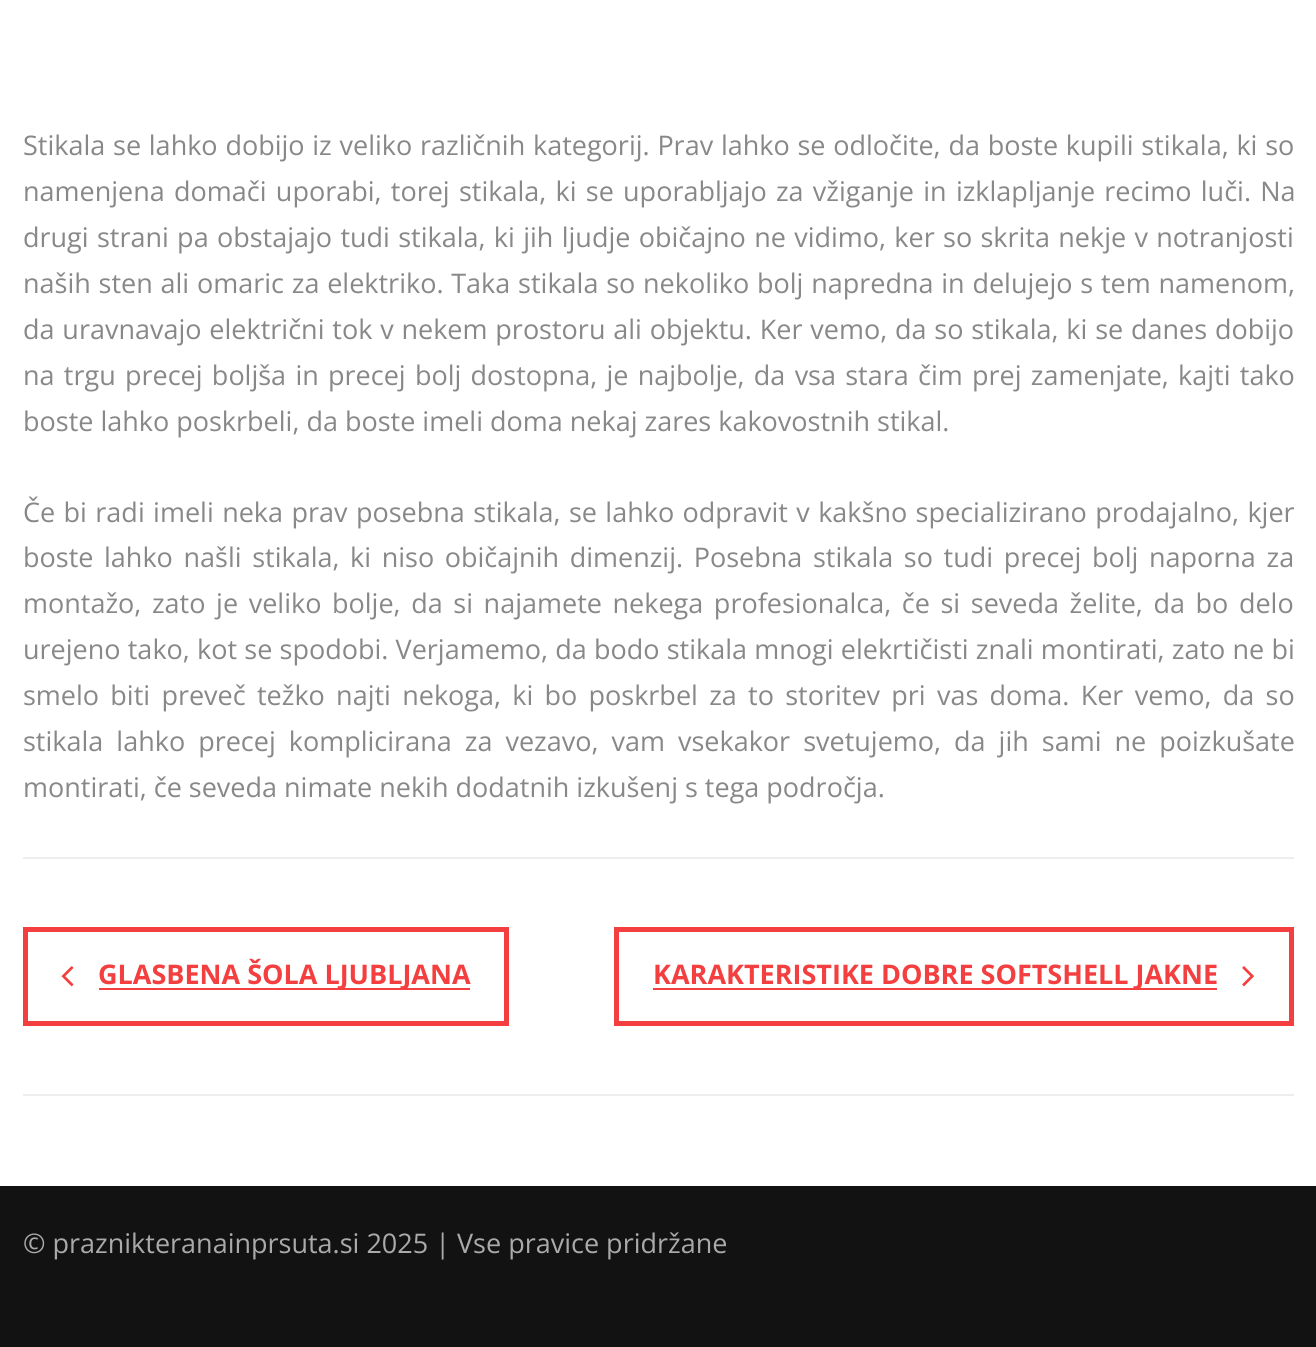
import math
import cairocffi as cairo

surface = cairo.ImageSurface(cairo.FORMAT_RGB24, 1316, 1347)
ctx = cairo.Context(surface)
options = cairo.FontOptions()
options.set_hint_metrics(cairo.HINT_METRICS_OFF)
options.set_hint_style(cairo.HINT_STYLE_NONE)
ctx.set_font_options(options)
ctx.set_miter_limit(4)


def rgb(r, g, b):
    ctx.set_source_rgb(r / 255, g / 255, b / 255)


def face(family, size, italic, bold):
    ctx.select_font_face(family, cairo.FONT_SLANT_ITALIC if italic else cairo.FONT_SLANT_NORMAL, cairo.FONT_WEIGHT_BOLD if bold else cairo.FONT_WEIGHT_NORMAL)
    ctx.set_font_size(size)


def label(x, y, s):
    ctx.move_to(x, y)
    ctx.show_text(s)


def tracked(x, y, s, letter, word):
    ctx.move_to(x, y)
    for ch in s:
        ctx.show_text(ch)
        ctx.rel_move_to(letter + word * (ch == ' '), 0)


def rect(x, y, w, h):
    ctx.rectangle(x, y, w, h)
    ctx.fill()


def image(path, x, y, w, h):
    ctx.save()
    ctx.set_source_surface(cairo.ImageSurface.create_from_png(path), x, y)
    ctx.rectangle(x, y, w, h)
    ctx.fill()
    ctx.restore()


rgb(255, 255, 255)
ctx.paint()
face('Open Sans', 27, 0, 0)
rgb(136, 136, 136)
tracked(23, 155, 'Stikala se lahko dobijo iz veliko različnih kategorij. Prav lahko se odločite, da boste kupili stikala, ki so', 0, 0.75)
tracked(23, 201, 'namenjena domači uporabi, torej stikala, ki se uporabljajo za vžiganje in izklapljanje recimo luči. Na', 0, 2.25)
tracked(23, 247, 'drugi strani pa obstajajo tudi stikala, ki jih ljudje običajno ne vidimo, ker so skrita nekje v notranjosti', 0, 1.3)
tracked(23, 293, 'naših sten ali omaric za elektriko. Taka stikala so nekoliko bolj napredna in delujejo s tem namenom,', 0, 0.75)
tracked(23, 339, 'da uravnavajo električni tok v nekem prostoru ali objektu. Ker vemo, da so stikala, ki se danes dobijo', 0, 0.8)
tracked(23, 385, 'na trgu precej boljša in precej bolj dostopna, je najbolje, da vsa stara čim prej zamenjate, kajti tako', 0, 2.25)
label(23, 431, 'boste lahko poskrbeli, da boste imeli doma nekaj zares kakovostnih stikal.')
tracked(23, 522, 'Če bi radi imeli neka prav posebna stikala, se lahko odpravit v kakšno specializirano prodajalno, kjer', 0, 1.4)
tracked(23, 567, 'boste lahko našli stikala, ki niso običajnih dimenzij. Posebna stikala so tudi precej bolj naporna za', 0, 3.6)
tracked(23, 613, 'montažo, zato je veliko bolje, da si najamete nekega profesionalca, če si seveda želite, da bo delo', 0, 3.6)
tracked(23, 659, 'urejeno tako, kot se spodobi. Verjamemo, da bodo stikala mnogi elekrtičisti znali montirati, zato ne bi', 0, 0.2)
tracked(23, 705, 'smelo biti preveč težko najti nekoga, ki bo poskrbel za to storitev pri vas doma. Ker vemo, da so', 0, 4.25)
tracked(23, 751, 'stikala lahko precej komplicirana za vezavo, vam vsekakor svetujemo, da jih sami ne poizkušate', 0, 6)
label(23, 797, 'montirati, če seveda nimate nekih dodatnih izkušenj s tega področja.')
rgb(238, 238, 238)
rect(23, 857, 1271, 2)
rect(23, 1094, 1271, 2)
ctx.rectangle(25.5, 929.5, 481, 94)
rgb(243, 63, 63)
ctx.set_line_width(5)
ctx.stroke()
image('image0.png', 61, 966, 13, 21)
rect(99, 988, 371, 2)
face('Open Sans', 27, 0, 1)
label(98, 984, 'GLASBENA ŠOLA LJUBLJANA')
ctx.rectangle(616.5, 929.5, 675, 94)
ctx.stroke()
rect(653, 988, 564, 2)
label(653, 984, 'KARAKTERISTIKE DOBRE SOFTSHELL JAKNE')
image('image1.png', 1242, 966, 12, 21)
rgb(18, 18, 18)
rect(0, 1186, 1316, 161)
face('Open Sans', 27, 0, 0)
rgb(170, 170, 170)
label(23, 1253, '© praznikteranainprsuta.si 2025 | Vse pravice pridržane')
surface.write_to_png('render.png')
